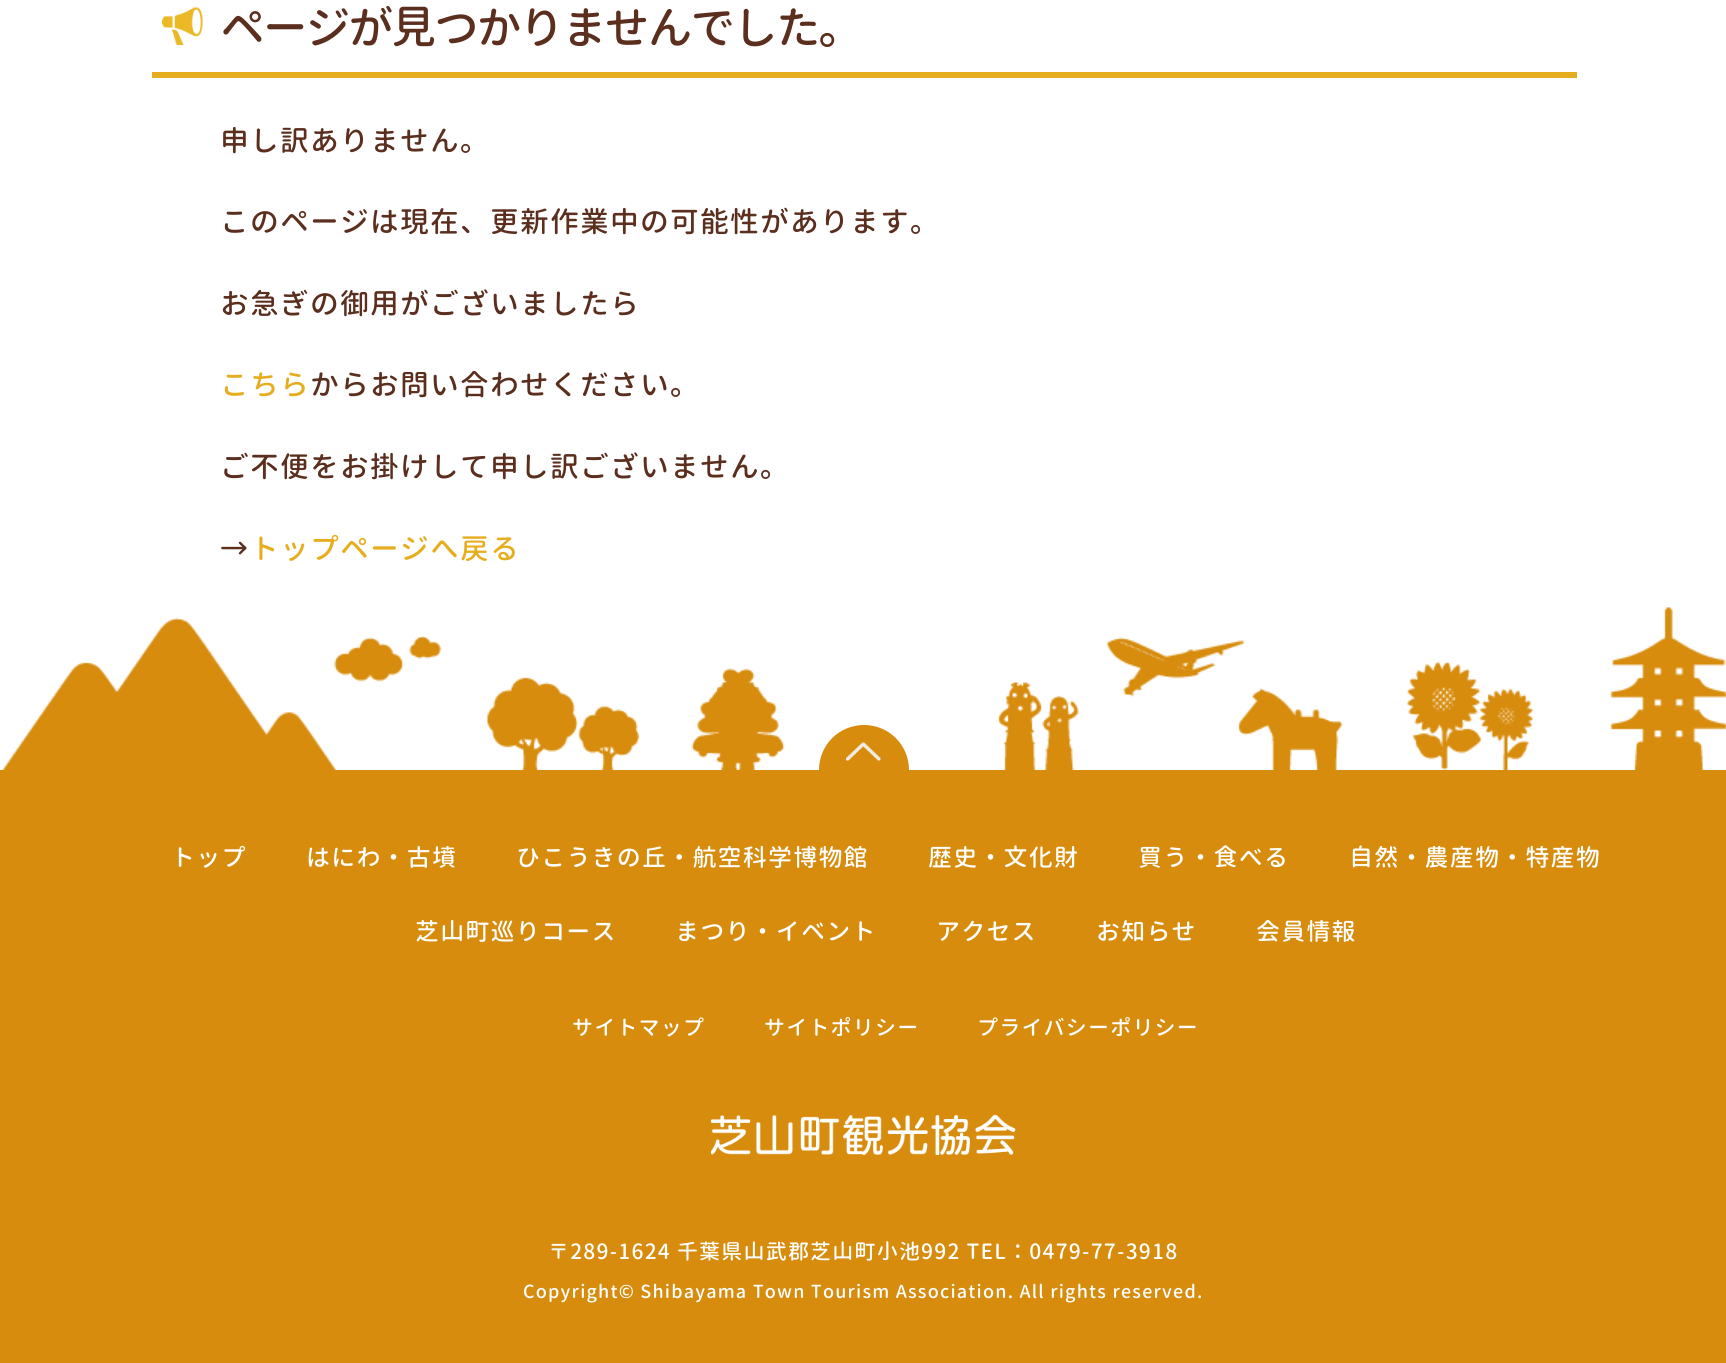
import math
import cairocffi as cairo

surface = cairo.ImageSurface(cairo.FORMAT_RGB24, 1726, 1363)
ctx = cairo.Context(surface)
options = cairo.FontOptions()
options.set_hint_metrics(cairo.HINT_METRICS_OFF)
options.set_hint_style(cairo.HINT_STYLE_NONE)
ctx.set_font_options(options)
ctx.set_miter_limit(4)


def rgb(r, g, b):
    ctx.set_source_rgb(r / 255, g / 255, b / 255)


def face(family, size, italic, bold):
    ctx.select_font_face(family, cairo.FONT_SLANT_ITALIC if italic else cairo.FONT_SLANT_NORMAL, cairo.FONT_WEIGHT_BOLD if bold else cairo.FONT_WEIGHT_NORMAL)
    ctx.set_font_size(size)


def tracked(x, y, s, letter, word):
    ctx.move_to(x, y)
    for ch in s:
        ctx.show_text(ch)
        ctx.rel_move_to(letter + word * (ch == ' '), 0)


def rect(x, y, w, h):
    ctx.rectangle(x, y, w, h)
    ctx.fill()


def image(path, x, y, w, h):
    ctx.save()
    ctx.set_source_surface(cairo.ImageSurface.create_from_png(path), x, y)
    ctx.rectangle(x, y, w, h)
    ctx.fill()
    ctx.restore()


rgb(255, 255, 255)
ctx.paint()
rgb(230, 173, 30)
rect(152, 72, 1425, 6)
image('image0.png', 162, 7, 41, 38)
face('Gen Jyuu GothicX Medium', 45, 0, 0)
rgb(91, 46, 30)
tracked(220, 44, 'ページが見つかりませんでした。', -2.25, 0)
face('Gen Jyuu GothicX Medium', 28.8, 0, 0)
tracked(220, 151, '申し訳ありません。', 1.2, 0)
tracked(220, 232, 'このページは現在、更新作業中の可能性があります。', 1.2, 0)
tracked(220, 314, 'お急ぎの御用がございましたら', 1.2, 0)
rgb(230, 173, 30)
tracked(220, 395, 'こちら', 1.2, 0)
rgb(91, 46, 30)
tracked(310, 395, 'からお問い合わせください。', 1.2, 0)
tracked(220, 477, 'ご不便をお掛けして申し訳ございません。', 1.2, 0)
tracked(220, 559, '→', 1.2, 0)
rgb(230, 173, 30)
tracked(250, 559, 'トップページへ戻る', 1.2, 0)
rgb(215, 140, 14)
rect(0, 770, 1726, 593)
image('image1.png', 2, 607, 1724, 163)
ctx.new_path()
ctx.move_to(864, 725)
ctx.curve_to(889, 725, 909, 745, 909, 770)
ctx.line_to(819, 770)
ctx.curve_to(819, 745, 839, 725, 864, 725)
ctx.close_path()
ctx.fill()
image('image2.png', 846, 742, 35, 19)
face('Gen Jyuu GothicX Medium', 24, 0, 0)
rgb(255, 255, 255)
tracked(171, 866, 'トップ', 1.2, 0)
tracked(306, 866, 'はにわ・古墳', 1.2, 0)
tracked(516, 866, 'ひこうきの丘・航空科学博物館', 1.2, 0)
tracked(928, 866, '歴史・文化財', 1.2, 0)
tracked(1138, 866, '買う・食べる', 1.2, 0)
tracked(1349, 866, '自然・農産物・特産物', 1.2, 0)
tracked(415, 940, '芝山町巡りコース', 1.2, 0)
tracked(675, 940, 'まつり・イベント', 1.2, 0)
tracked(936, 940, 'アクセス', 1.2, 0)
tracked(1096, 940, 'お知らせ', 1.2, 0)
tracked(1256, 940, '会員情報', 1.2, 0)
face('Gen Jyuu GothicX Medium', 21, 0, 0)
tracked(572, 1035, 'サイトマップ', 1.2, 0)
tracked(764, 1035, 'サイトポリシー', 1.2, 0)
tracked(977, 1035, 'プライバシーポリシー', 1.2, 0)
image('image3.png', 711, 1114, 305, 41)
tracked(548, 1259, '〒289-1624 千葉県山武郡芝山町小池992 TEL：0479-77-3918', 1.2, 0)
face('Gen Jyuu GothicX Medium', 18, 0, 0)
tracked(523, 1298, 'Copyright© Shibayama Town Tourism Association. All rights reserved.', 1.2, 0)
surface.write_to_png('render.png')
